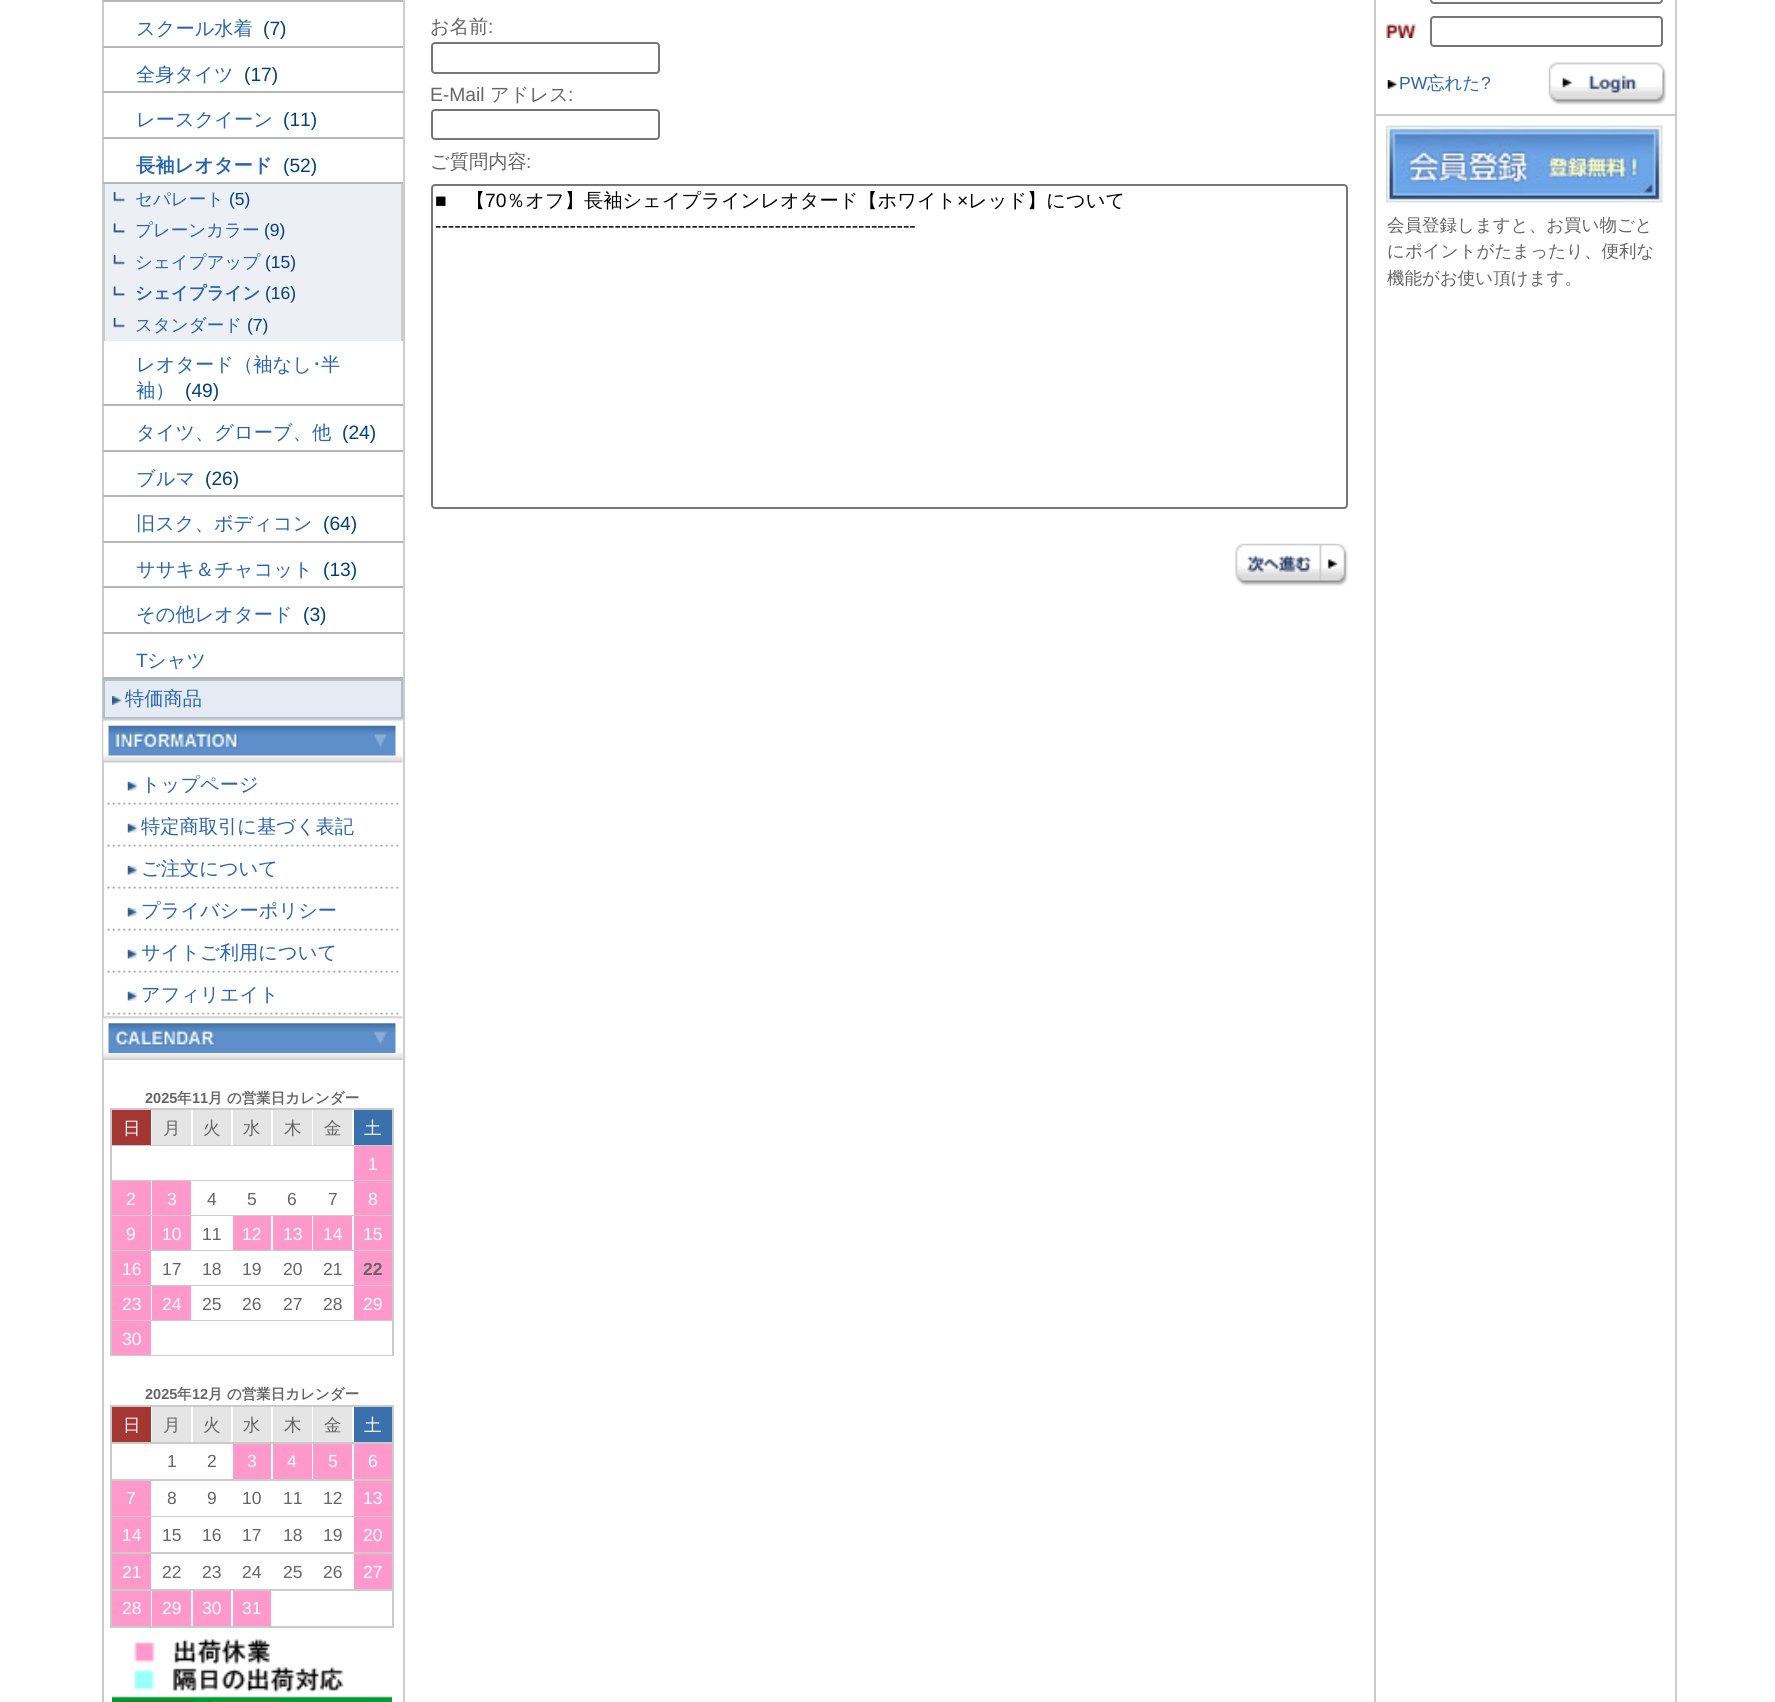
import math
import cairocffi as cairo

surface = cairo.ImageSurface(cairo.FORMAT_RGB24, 1775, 1702)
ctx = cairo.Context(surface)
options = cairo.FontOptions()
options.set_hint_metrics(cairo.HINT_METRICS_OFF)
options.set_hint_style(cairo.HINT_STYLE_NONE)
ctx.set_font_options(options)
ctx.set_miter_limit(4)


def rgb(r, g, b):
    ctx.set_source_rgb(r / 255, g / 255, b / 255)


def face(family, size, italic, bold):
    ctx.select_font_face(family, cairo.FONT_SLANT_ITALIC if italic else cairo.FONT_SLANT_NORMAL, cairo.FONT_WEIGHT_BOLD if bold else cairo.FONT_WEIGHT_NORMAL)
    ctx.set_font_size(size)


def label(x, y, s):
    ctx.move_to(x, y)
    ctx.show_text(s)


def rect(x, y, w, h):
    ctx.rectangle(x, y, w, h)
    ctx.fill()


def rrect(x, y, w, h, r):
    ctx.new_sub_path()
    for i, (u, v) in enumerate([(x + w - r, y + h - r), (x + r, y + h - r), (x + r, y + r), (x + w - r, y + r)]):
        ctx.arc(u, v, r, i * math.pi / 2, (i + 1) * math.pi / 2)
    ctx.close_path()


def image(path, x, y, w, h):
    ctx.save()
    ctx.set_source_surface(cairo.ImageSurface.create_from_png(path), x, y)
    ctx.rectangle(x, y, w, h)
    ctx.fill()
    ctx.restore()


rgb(255, 255, 255)
ctx.paint()
rgb(204, 204, 204)
rect(1675, 0, 2, 1702)
rect(102, 0, 2, 1702)
rect(403, 0, 2, 1702)
rgb(182, 182, 182)
rect(103, 0, 300, 2)
face('WenQuanYi Zen Hei Medium', 19.25, 0, 0)
rgb(40, 100, 180)
label(136, 35, 'スクール水着')
face('Liberation Sans', 19.25, 0, 0)
rgb(0, 64, 128)
label(263, 35, '(7)')
rgb(182, 182, 182)
rect(103, 46, 300, 2)
face('WenQuanYi Zen Hei Medium', 19.25, 0, 0)
rgb(40, 100, 180)
label(136, 81, '全身タイツ')
face('Liberation Sans', 19.25, 0, 0)
rgb(0, 64, 128)
label(244, 81, '(17)')
rgb(182, 182, 182)
rect(103, 91, 300, 2)
face('WenQuanYi Zen Hei Medium', 19.25, 0, 0)
rgb(40, 100, 180)
label(136, 126, 'レースクイーン')
face('Liberation Sans', 19.25, 0, 0)
rgb(0, 64, 128)
label(283, 126, '(11)')
rgb(182, 182, 182)
rect(103, 137, 300, 2)
face('WenQuanYi Zen Hei', 19.25, 0, 1)
rgb(40, 100, 180)
label(136, 172, '長袖レオタード')
face('Liberation Sans', 19.25, 0, 0)
rgb(0, 64, 128)
label(283, 172, '(52)')
rgb(182, 182, 182)
rect(103, 182, 300, 2)
rgb(236, 240, 244)
rect(105, 184, 296, 157)
rgb(203, 203, 203)
rect(401, 184, 2, 157)
rect(104, 184, 1, 157)
image('image0.png', 113, 192, 12, 10)
face('WenQuanYi Zen Hei Medium', 17.5, 0, 0)
rgb(40, 100, 180)
label(135, 205, 'セパレート')
face('Liberation Sans', 17.5, 0, 0)
rgb(0, 64, 128)
label(229, 205, '(5)')
image('image1.png', 113, 223, 12, 10)
face('WenQuanYi Zen Hei Medium', 17.5, 0, 0)
rgb(40, 100, 180)
label(135, 236, 'プレーンカラー')
face('Liberation Sans', 17.5, 0, 0)
rgb(0, 64, 128)
label(264, 236, '(9)')
image('image0.png', 113, 255, 12, 10)
face('WenQuanYi Zen Hei Medium', 17.5, 0, 0)
rgb(40, 100, 180)
label(135, 268, 'シェイプアップ')
face('Liberation Sans', 17.5, 0, 0)
rgb(0, 64, 128)
label(265, 268, '(15)')
image('image1.png', 113, 286, 12, 10)
face('WenQuanYi Zen Hei', 17.5, 0, 1)
rgb(40, 100, 180)
label(135, 299, 'シェイプライン')
face('Liberation Sans', 17.5, 0, 0)
rgb(0, 64, 128)
label(265, 299, '(16)')
image('image0.png', 113, 318, 12, 10)
face('WenQuanYi Zen Hei Medium', 17.5, 0, 0)
rgb(40, 100, 180)
label(135, 331, 'スタンダード')
face('Liberation Sans', 17.5, 0, 0)
rgb(0, 64, 128)
label(247, 331, '(7)')
face('WenQuanYi Zen Hei Medium', 19.25, 0, 0)
rgb(40, 100, 180)
label(136, 371, 'レオタード（袖なし')
face('IPAPGothic', 19.25, 0, 0)
label(312, 371, '･')
face('WenQuanYi Zen Hei Medium', 19.25, 0, 0)
label(321, 371, '半')
label(136, 397, '袖）')
face('Liberation Sans', 19.25, 0, 0)
rgb(0, 64, 128)
label(185, 397, '(49)')
rgb(182, 182, 182)
rect(103, 404, 300, 2)
face('WenQuanYi Zen Hei Medium', 19.25, 0, 0)
rgb(40, 100, 180)
label(136, 439, 'タイツ、グローブ、他')
face('Liberation Sans', 19.25, 0, 0)
rgb(0, 64, 128)
label(342, 439, '(24)')
rgb(182, 182, 182)
rect(103, 450, 300, 2)
face('WenQuanYi Zen Hei Medium', 19.25, 0, 0)
rgb(40, 100, 180)
label(136, 485, 'ブルマ')
face('Liberation Sans', 19.25, 0, 0)
rgb(0, 64, 128)
label(205, 485, '(26)')
rgb(182, 182, 182)
rect(103, 495, 300, 2)
face('WenQuanYi Zen Hei Medium', 19.25, 0, 0)
rgb(40, 100, 180)
label(136, 530, '旧スク、ボディコン')
face('Liberation Sans', 19.25, 0, 0)
rgb(0, 64, 128)
label(323, 530, '(64)')
rgb(182, 182, 182)
rect(103, 541, 300, 2)
face('WenQuanYi Zen Hei Medium', 19.25, 0, 0)
rgb(40, 100, 180)
label(136, 576, 'ササキ＆チャコット')
face('Liberation Sans', 19.25, 0, 0)
rgb(0, 64, 128)
label(323, 576, '(13)')
rgb(182, 182, 182)
rect(103, 586, 300, 2)
face('WenQuanYi Zen Hei Medium', 19.25, 0, 0)
rgb(40, 100, 180)
label(136, 621, 'その他レオタード')
face('Liberation Sans', 19.25, 0, 0)
rgb(0, 64, 128)
label(303, 621, '(3)')
rgb(182, 182, 182)
rect(103, 632, 300, 2)
rgb(40, 100, 180)
label(136, 667, 'T')
face('WenQuanYi Zen Hei Medium', 19.25, 0, 0)
label(147, 667, 'シャツ')
rgb(182, 182, 182)
rect(103, 677, 300, 2)
rgb(229, 235, 242)
ctx.rectangle(104, 680, 298, 38)
ctx.fill_preserve()
rgb(176, 191, 207)
ctx.stroke()
image('image2.png', 112, 696, 9, 9)
rgb(40, 100, 180)
label(125, 705, '特価商品')
image('image3.png', 103, 718, 300, 45)
image('image4.png', 108, 725, 288, 31)
image('image5.png', 107, 802, 292, 3)
image('image6.png', 127, 781, 10, 10)
label(141, 791, 'トップページ')
image('image5.png', 107, 844, 292, 3)
image('image6.png', 127, 823, 10, 10)
label(141, 833, '特定商取引に基づく表記')
image('image5.png', 107, 886, 292, 3)
image('image6.png', 127, 865, 10, 10)
label(141, 875, 'ご注文について')
image('image5.png', 107, 928, 292, 3)
image('image6.png', 127, 907, 10, 10)
label(141, 917, 'プライバシーポリシー')
image('image5.png', 107, 970, 292, 3)
image('image6.png', 127, 949, 10, 10)
label(141, 959, 'サイトご利用について')
image('image5.png', 107, 1012, 292, 3)
image('image6.png', 127, 991, 10, 10)
label(141, 1001, 'アフィリエイト')
image('image7.png', 103, 1016, 300, 44)
image('image8.png', 108, 1023, 288, 30)
face('Liberation Sans', 14.5, 0, 1)
rgb(101, 101, 101)
label(145, 1103, '2025')
face('WenQuanYi Zen Hei', 14.5, 0, 1)
label(177, 1103, '年')
face('Liberation Sans', 14.5, 0, 1)
label(192, 1103, '11')
face('WenQuanYi Zen Hei', 14.5, 0, 1)
label(208, 1103, '月')
label(227, 1103, 'の営業日カレンダー')
rgb(203, 203, 203)
rect(110, 1108, 284, 248)
rgb(255, 255, 255)
rect(151, 1110, 203, 35)
rgb(164, 55, 52)
rect(112, 1110, 39, 35)
face('WenQuanYi Zen Hei Medium', 17.5, 0, 0)
rgb(255, 255, 255)
label(123, 1134, '日')
rgb(229, 229, 229)
rect(152, 1110, 39, 35)
rgb(101, 101, 101)
label(163, 1134, '月')
rgb(229, 229, 229)
rect(193, 1110, 38, 35)
rgb(101, 101, 101)
label(203, 1134, '火')
rgb(229, 229, 229)
rect(233, 1110, 38, 35)
rgb(101, 101, 101)
label(243, 1134, '水')
rgb(229, 229, 229)
rect(273, 1110, 39, 35)
rgb(101, 101, 101)
label(284, 1134, '木')
rgb(229, 229, 229)
rect(313, 1110, 39, 35)
rgb(101, 101, 101)
label(324, 1134, '金')
rgb(58, 112, 172)
rect(354, 1110, 38, 35)
rgb(255, 255, 255)
label(364, 1134, '土')
rect(112, 1146, 242, 34)
rgb(255, 153, 204)
rect(354, 1146, 38, 34)
face('Liberation Sans', 17.5, 0, 0)
rgb(255, 255, 255)
label(368, 1170, '1')
rect(151, 1181, 203, 34)
rgb(255, 153, 204)
rect(112, 1181, 39, 34)
rgb(255, 255, 255)
label(126, 1205, '2')
rgb(255, 153, 204)
rect(152, 1181, 39, 34)
rgb(255, 255, 255)
label(167, 1205, '3')
rgb(101, 101, 101)
label(207, 1205, '4')
label(247, 1205, '5')
label(287, 1205, '6')
label(328, 1205, '7')
rgb(255, 153, 204)
rect(354, 1181, 38, 34)
rgb(255, 255, 255)
label(368, 1205, '8')
rect(151, 1216, 203, 34)
rgb(255, 153, 204)
rect(112, 1216, 39, 34)
rgb(255, 255, 255)
label(126, 1240, '9')
rgb(255, 153, 204)
rect(152, 1216, 39, 34)
rgb(255, 255, 255)
label(162, 1240, '10')
rgb(101, 101, 101)
label(202, 1240, '11')
rgb(255, 153, 204)
rect(233, 1216, 38, 34)
rgb(255, 255, 255)
label(242, 1240, '12')
rgb(255, 153, 204)
rect(273, 1216, 39, 34)
rgb(255, 255, 255)
label(283, 1240, '13')
rgb(255, 153, 204)
rect(313, 1216, 39, 34)
rgb(255, 255, 255)
label(323, 1240, '14')
rgb(255, 153, 204)
rect(354, 1216, 38, 34)
rgb(255, 255, 255)
label(363, 1240, '15')
rect(151, 1251, 203, 34)
rgb(255, 153, 204)
rect(112, 1251, 39, 34)
rgb(255, 255, 255)
label(122, 1275, '16')
rgb(101, 101, 101)
label(162, 1275, '17')
label(202, 1275, '18')
label(242, 1275, '19')
label(283, 1275, '20')
label(323, 1275, '21')
rgb(255, 153, 204)
rect(354, 1251, 38, 34)
face('Liberation Sans', 17.5, 0, 1)
rgb(101, 101, 101)
label(363, 1275, '22')
rgb(255, 255, 255)
rect(151, 1286, 203, 34)
rgb(255, 153, 204)
rect(112, 1286, 39, 34)
face('Liberation Sans', 17.5, 0, 0)
rgb(255, 255, 255)
label(122, 1310, '23')
rgb(255, 153, 204)
rect(152, 1286, 39, 34)
rgb(255, 255, 255)
label(162, 1310, '24')
rgb(101, 101, 101)
label(202, 1310, '25')
label(242, 1310, '26')
label(283, 1310, '27')
label(323, 1310, '28')
rgb(255, 153, 204)
rect(354, 1286, 38, 34)
rgb(255, 255, 255)
label(363, 1310, '29')
rect(151, 1321, 241, 34)
rgb(255, 153, 204)
rect(112, 1321, 39, 34)
rgb(255, 255, 255)
label(122, 1345, '30')
face('Liberation Sans', 14.5, 0, 1)
rgb(101, 101, 101)
label(145, 1399, '2025')
face('WenQuanYi Zen Hei', 14.5, 0, 1)
label(177, 1399, '年')
face('Liberation Sans', 14.5, 0, 1)
label(192, 1399, '12')
face('WenQuanYi Zen Hei', 14.5, 0, 1)
label(208, 1399, '月')
label(227, 1399, 'の営業日カレンダー')
rgb(203, 203, 203)
rect(110, 1405, 284, 223)
rgb(255, 255, 255)
rect(151, 1407, 203, 35)
rgb(164, 55, 52)
rect(112, 1407, 39, 35)
face('WenQuanYi Zen Hei Medium', 17.5, 0, 0)
rgb(255, 255, 255)
label(123, 1431, '日')
rgb(229, 229, 229)
rect(152, 1407, 39, 35)
rgb(101, 101, 101)
label(163, 1431, '月')
rgb(229, 229, 229)
rect(193, 1407, 38, 35)
rgb(101, 101, 101)
label(203, 1431, '火')
rgb(229, 229, 229)
rect(233, 1407, 38, 35)
rgb(101, 101, 101)
label(243, 1431, '水')
rgb(229, 229, 229)
rect(273, 1407, 39, 35)
rgb(101, 101, 101)
label(284, 1431, '木')
rgb(229, 229, 229)
rect(313, 1407, 39, 35)
rgb(101, 101, 101)
label(324, 1431, '金')
rgb(58, 112, 172)
rect(354, 1407, 38, 35)
rgb(255, 255, 255)
label(364, 1431, '土')
rect(112, 1444, 242, 35)
face('Liberation Sans', 17.5, 0, 0)
rgb(101, 101, 101)
label(167, 1467, '1')
label(207, 1467, '2')
rgb(255, 153, 204)
rect(233, 1444, 38, 35)
rgb(255, 255, 255)
label(247, 1467, '3')
rgb(255, 153, 204)
rect(273, 1444, 39, 35)
rgb(255, 255, 255)
label(287, 1467, '4')
rgb(255, 153, 204)
rect(313, 1444, 39, 35)
rgb(255, 255, 255)
label(328, 1467, '5')
rgb(255, 153, 204)
rect(354, 1444, 38, 35)
rgb(255, 255, 255)
label(368, 1467, '6')
rect(151, 1481, 203, 35)
rgb(255, 153, 204)
rect(112, 1481, 39, 35)
rgb(255, 255, 255)
label(126, 1504, '7')
rgb(101, 101, 101)
label(167, 1504, '8')
label(207, 1504, '9')
label(242, 1504, '10')
label(283, 1504, '11')
label(323, 1504, '12')
rgb(255, 153, 204)
rect(354, 1481, 38, 35)
rgb(255, 255, 255)
label(363, 1504, '13')
rect(151, 1517, 203, 35)
rgb(255, 153, 204)
rect(112, 1517, 39, 35)
rgb(255, 255, 255)
label(122, 1541, '14')
rgb(101, 101, 101)
label(162, 1541, '15')
label(202, 1541, '16')
label(242, 1541, '17')
label(283, 1541, '18')
label(323, 1541, '19')
rgb(255, 153, 204)
rect(354, 1517, 38, 35)
rgb(255, 255, 255)
label(363, 1541, '20')
rect(151, 1554, 203, 35)
rgb(255, 153, 204)
rect(112, 1554, 39, 35)
rgb(255, 255, 255)
label(122, 1578, '21')
rgb(101, 101, 101)
label(162, 1578, '22')
label(202, 1578, '23')
label(242, 1578, '24')
label(283, 1578, '25')
label(323, 1578, '26')
rgb(255, 153, 204)
rect(354, 1554, 38, 35)
rgb(255, 255, 255)
label(363, 1578, '27')
rect(151, 1591, 241, 35)
rgb(255, 153, 204)
rect(112, 1591, 39, 35)
rgb(255, 255, 255)
label(122, 1614, '28')
rgb(255, 153, 204)
rect(152, 1591, 39, 35)
rgb(255, 255, 255)
label(162, 1614, '29')
rgb(255, 153, 204)
rect(193, 1591, 38, 35)
rgb(255, 255, 255)
label(202, 1614, '30')
rgb(255, 153, 204)
rect(233, 1591, 38, 35)
rgb(255, 255, 255)
label(242, 1614, '31')
image('image9.png', 112, 1638, 280, 64)
face('WenQuanYi Zen Hei Medium', 19.25, 0, 0)
rgb(101, 101, 101)
label(430, 33, 'お名前')
face('Liberation Sans', 19.25, 0, 0)
label(488, 33, ':')
rrect(432, 43, 227, 30, 3)
rgb(118, 118, 118)
ctx.stroke()
rgb(101, 101, 101)
label(430, 101, 'E-Mail')
face('WenQuanYi Zen Hei Medium', 19.25, 0, 0)
label(490, 101, 'アドレス')
face('Liberation Sans', 19.25, 0, 0)
label(568, 101, ':')
rrect(432, 110, 227, 29, 3)
rgb(118, 118, 118)
ctx.stroke()
face('WenQuanYi Zen Hei Medium', 19.25, 0, 0)
rgb(101, 101, 101)
label(430, 168, 'ご質問内容')
face('Liberation Sans', 19.25, 0, 0)
label(526, 168, ':')
rrect(432, 185, 915, 323, 3)
rgb(118, 118, 118)
ctx.stroke()
rgb(0, 0, 0)
label(435, 207, '■')
face('WenQuanYi Zen Hei Medium', 19.25, 0, 0)
label(466, 207, '【')
face('Liberation Sans', 19.25, 0, 0)
label(485, 207, '70')
face('WenQuanYi Zen Hei Medium', 19.25, 0, 0)
label(506, 207, '％オフ】長袖シェイプラインレオタード【ホワイト')
face('Liberation Sans', 19.25, 0, 0)
label(957, 207, '×')
face('WenQuanYi Zen Hei Medium', 19.25, 0, 0)
label(968, 207, 'レッド】について')
face('Liberation Sans', 19.25, 0, 0)
label(435, 232, '---------------------------------------------------------------------------')
image('image10.png', 1235, 543, 113, 43)
rgb(204, 204, 204)
rect(1374, 0, 2, 1702)
rrect(1431, -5, 231, 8, 3)
rgb(118, 118, 118)
ctx.stroke()
image('image11.png', 1386, 24, 30, 14)
rrect(1431, 17, 231, 29, 3)
ctx.stroke()
image('image12.png', 1387, 80, 10, 9)
face('Liberation Sans', 17.5, 0, 0)
rgb(40, 100, 180)
label(1399, 89, 'PW')
face('WenQuanYi Zen Hei Medium', 17.5, 0, 0)
label(1427, 89, '忘れた')
face('Liberation Sans', 17.5, 0, 0)
label(1481, 89, '?')
image('image13.png', 1548, 62, 118, 43)
rgb(204, 204, 204)
rect(1376, 114, 299, 2)
image('image14.png', 1386, 125, 277, 78)
face('WenQuanYi Zen Hei Medium', 17.5, 0, 0)
rgb(101, 101, 101)
label(1387, 231, '会員登録しますと、お買い物ごと')
label(1387, 257, 'にポイントがたまったり、便利な')
label(1387, 284, '機能がお使い頂けます。')
surface.write_to_png('render.png')
